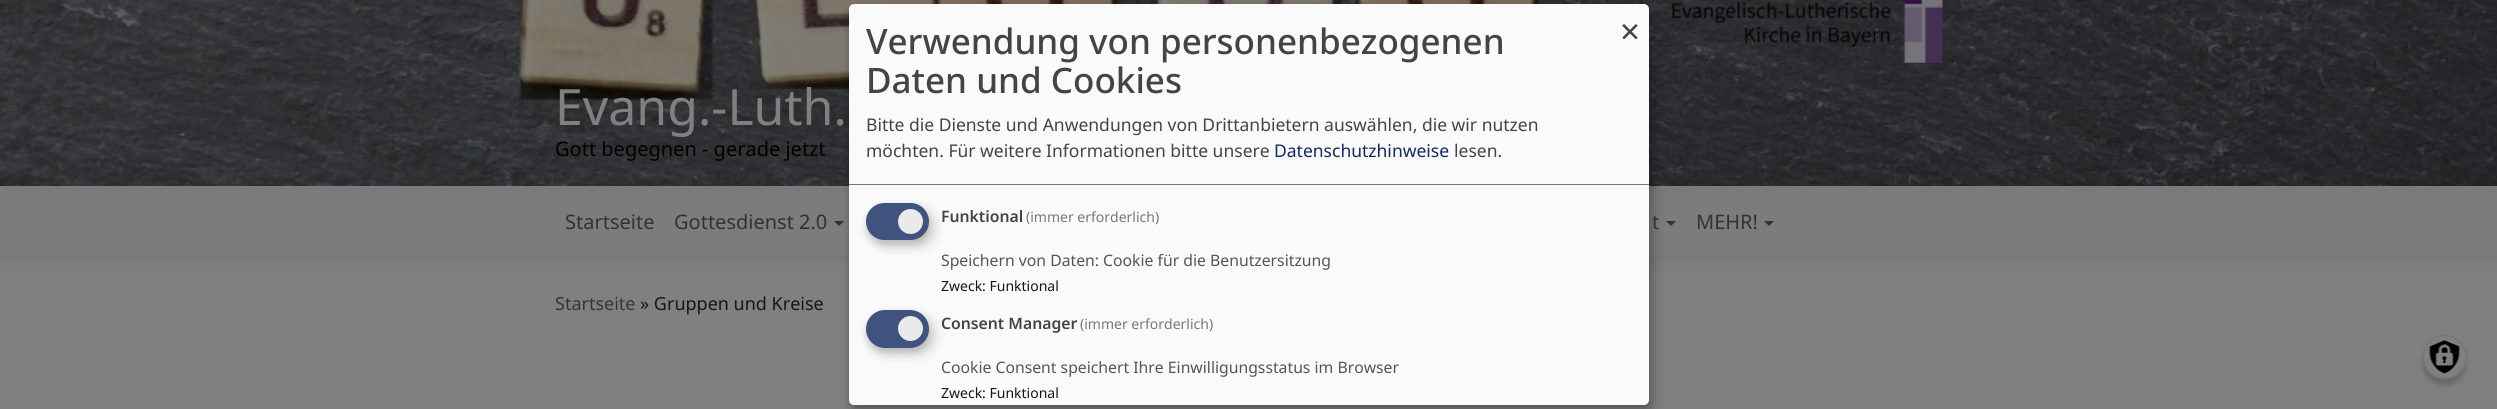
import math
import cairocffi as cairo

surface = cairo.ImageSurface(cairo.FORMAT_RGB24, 2497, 409)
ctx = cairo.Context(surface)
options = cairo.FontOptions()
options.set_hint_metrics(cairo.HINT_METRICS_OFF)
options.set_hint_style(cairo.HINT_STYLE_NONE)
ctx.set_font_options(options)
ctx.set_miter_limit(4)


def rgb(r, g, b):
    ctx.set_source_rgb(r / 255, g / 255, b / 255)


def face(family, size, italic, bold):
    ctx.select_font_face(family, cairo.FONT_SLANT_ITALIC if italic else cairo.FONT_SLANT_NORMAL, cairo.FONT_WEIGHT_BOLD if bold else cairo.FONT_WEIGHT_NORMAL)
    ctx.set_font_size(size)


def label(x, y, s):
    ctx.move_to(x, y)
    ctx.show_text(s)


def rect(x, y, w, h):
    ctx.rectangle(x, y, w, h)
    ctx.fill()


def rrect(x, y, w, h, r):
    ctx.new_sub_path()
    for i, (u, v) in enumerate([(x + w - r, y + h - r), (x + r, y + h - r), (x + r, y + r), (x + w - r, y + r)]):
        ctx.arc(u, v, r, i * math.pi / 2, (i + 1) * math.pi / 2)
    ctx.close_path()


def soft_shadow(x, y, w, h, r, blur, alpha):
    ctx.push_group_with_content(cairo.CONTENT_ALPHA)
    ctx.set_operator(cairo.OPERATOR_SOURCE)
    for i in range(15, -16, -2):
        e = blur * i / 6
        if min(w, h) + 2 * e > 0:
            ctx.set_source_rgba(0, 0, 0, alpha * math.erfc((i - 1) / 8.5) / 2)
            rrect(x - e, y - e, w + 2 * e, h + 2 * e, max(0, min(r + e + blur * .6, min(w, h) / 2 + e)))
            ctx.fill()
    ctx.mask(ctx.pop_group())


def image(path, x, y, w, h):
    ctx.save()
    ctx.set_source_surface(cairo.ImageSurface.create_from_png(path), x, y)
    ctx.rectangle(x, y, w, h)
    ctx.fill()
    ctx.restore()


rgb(128, 128, 128)
ctx.paint()
image('image0.png', 0, 0, 2497, 186)
image('image1.png', 1672, 0, 271, 63)
rgb(0, 0, 0)
soft_shadow(0, 189, 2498, 70, 0, 9.5, 0.09)
rgb(124, 124, 124)
rect(2, 191, 2494, 65)
rgb(50, 50, 50)
ctx.new_path()
ctx.move_to(834, 221)
ctx.line_to(844, 221)
ctx.line_to(839, 226)
ctx.close_path()
ctx.fill()
ctx.new_path()
ctx.move_to(1666, 221)
ctx.line_to(1676, 221)
ctx.line_to(1671, 226)
ctx.close_path()
ctx.fill()
rgb(0, 0, 0)
soft_shadow(855, 10, 800, 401, 5, 6, 0.19)
soft_shadow(849, 9, 800, 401, 5, 4, 0.2)
rgb(250, 250, 250)
rrect(849, 4, 800, 401, 5)
ctx.fill()
rgb(119, 119, 119)
rect(849, 184, 800, 1)
face('Noto Sans Medium', 35, 0, 0)
rgb(68, 68, 68)
label(866, 54, 'Verwendung von personenbezogenen')
label(866, 93, 'Daten und Cookies')
face('Noto Sans', 17.5, 0, 0)
label(866, 131, 'Bitte die Dienste und Anwendungen von Drittanbietern auswählen, die wir nutzen')
label(866, 157, 'möchten. Für weitere Informationen bitte unsere')
rgb(18, 40, 95)
label(1274, 157, 'Datenschutzhinweise')
rgb(68, 68, 68)
label(1454, 157, 'lesen.')
face('Noto Sans', 35, 0, 0)
label(1620, 44, '×')
rgb(0, 0, 0)
soft_shadow(873, 209, 62, 37, 18.5, 6, 0.15)
rgb(50, 50, 50)
soft_shadow(866, 208, 63, 37, 18.5, 4, 0.2)
rgb(64, 82, 126)
rrect(866, 203, 63, 37, 18.5)
ctx.fill()
rgb(234, 234, 234)
ctx.arc(910.5, 221.5, 12.5, 0, 2 * math.pi)
ctx.fill()
face('Noto Sans SemiBold', 15.75, 0, 0)
rgb(68, 68, 68)
label(941, 222, 'Funktional')
face('Noto Sans', 14, 0, 0)
rgb(119, 119, 119)
label(1026, 222, '(immer erforderlich)')
face('Noto Sans', 15.75, 0, 0)
rgb(85, 85, 85)
label(941, 266, 'Speichern von Daten: Cookie für die Benutzersitzung')
face('Noto Sans', 14, 0, 0)
rgb(21, 22, 22)
label(941, 291, 'Zweck: Funktional')
rgb(0, 0, 0)
soft_shadow(873, 316, 62, 38, 19, 6, 0.15)
rgb(50, 50, 50)
soft_shadow(866, 315, 63, 38, 19, 4, 0.2)
rgb(64, 82, 126)
rrect(866, 310, 63, 38, 19)
ctx.fill()
rgb(234, 234, 234)
ctx.arc(910.5, 328.5, 12.5, 0, 2 * math.pi)
ctx.fill()
face('Noto Sans SemiBold', 15.75, 0, 0)
rgb(68, 68, 68)
label(941, 329, 'Consent Manager')
face('Noto Sans', 14, 0, 0)
rgb(119, 119, 119)
label(1080, 329, '(immer erforderlich)')
face('Noto Sans', 15.75, 0, 0)
rgb(85, 85, 85)
label(941, 373, 'Cookie Consent speichert Ihre Einwilligungsstatus im Browser')
face('Noto Sans', 14, 0, 0)
rgb(21, 22, 22)
label(941, 398, 'Zweck: Funktional')
face('Noto Sans', 50, 0, 0)
rgb(128, 128, 128)
label(555, 125, 'Evang.-Luth.')
face('Noto Sans', 20, 0, 0)
rgb(0, 0, 0)
label(555, 156, 'Gott begegnen - gerade jetzt')
rgb(50, 50, 50)
label(565, 229, 'Startseite')
label(674, 229, 'Gottesdienst 2.0')
label(1652, 229, 't')
label(1696, 229, 'MEHR!')
ctx.new_path()
ctx.move_to(1764, 221)
ctx.line_to(1774, 221)
ctx.line_to(1769, 226)
ctx.close_path()
ctx.fill()
face('Noto Sans', 18, 0, 0)
rgb(50, 54, 57)
label(555, 310, 'Startseite')
rgb(21, 22, 22)
label(640, 310, '» Gruppen und Kreise')
rgb(0, 0, 0)
soft_shadow(2423, 341, 43, 44, 21.5, 3, 0.2)
rgb(128, 128, 128)
rrect(2423, 335, 43, 44, 21.5)
ctx.fill()
image('image2.png', 2429, 340, 31, 34)
rrect(2423.5, 335.5, 42, 43, 21)
rgb(117, 117, 117)
ctx.set_line_width(1)
ctx.stroke()
surface.write_to_png('render.png')
